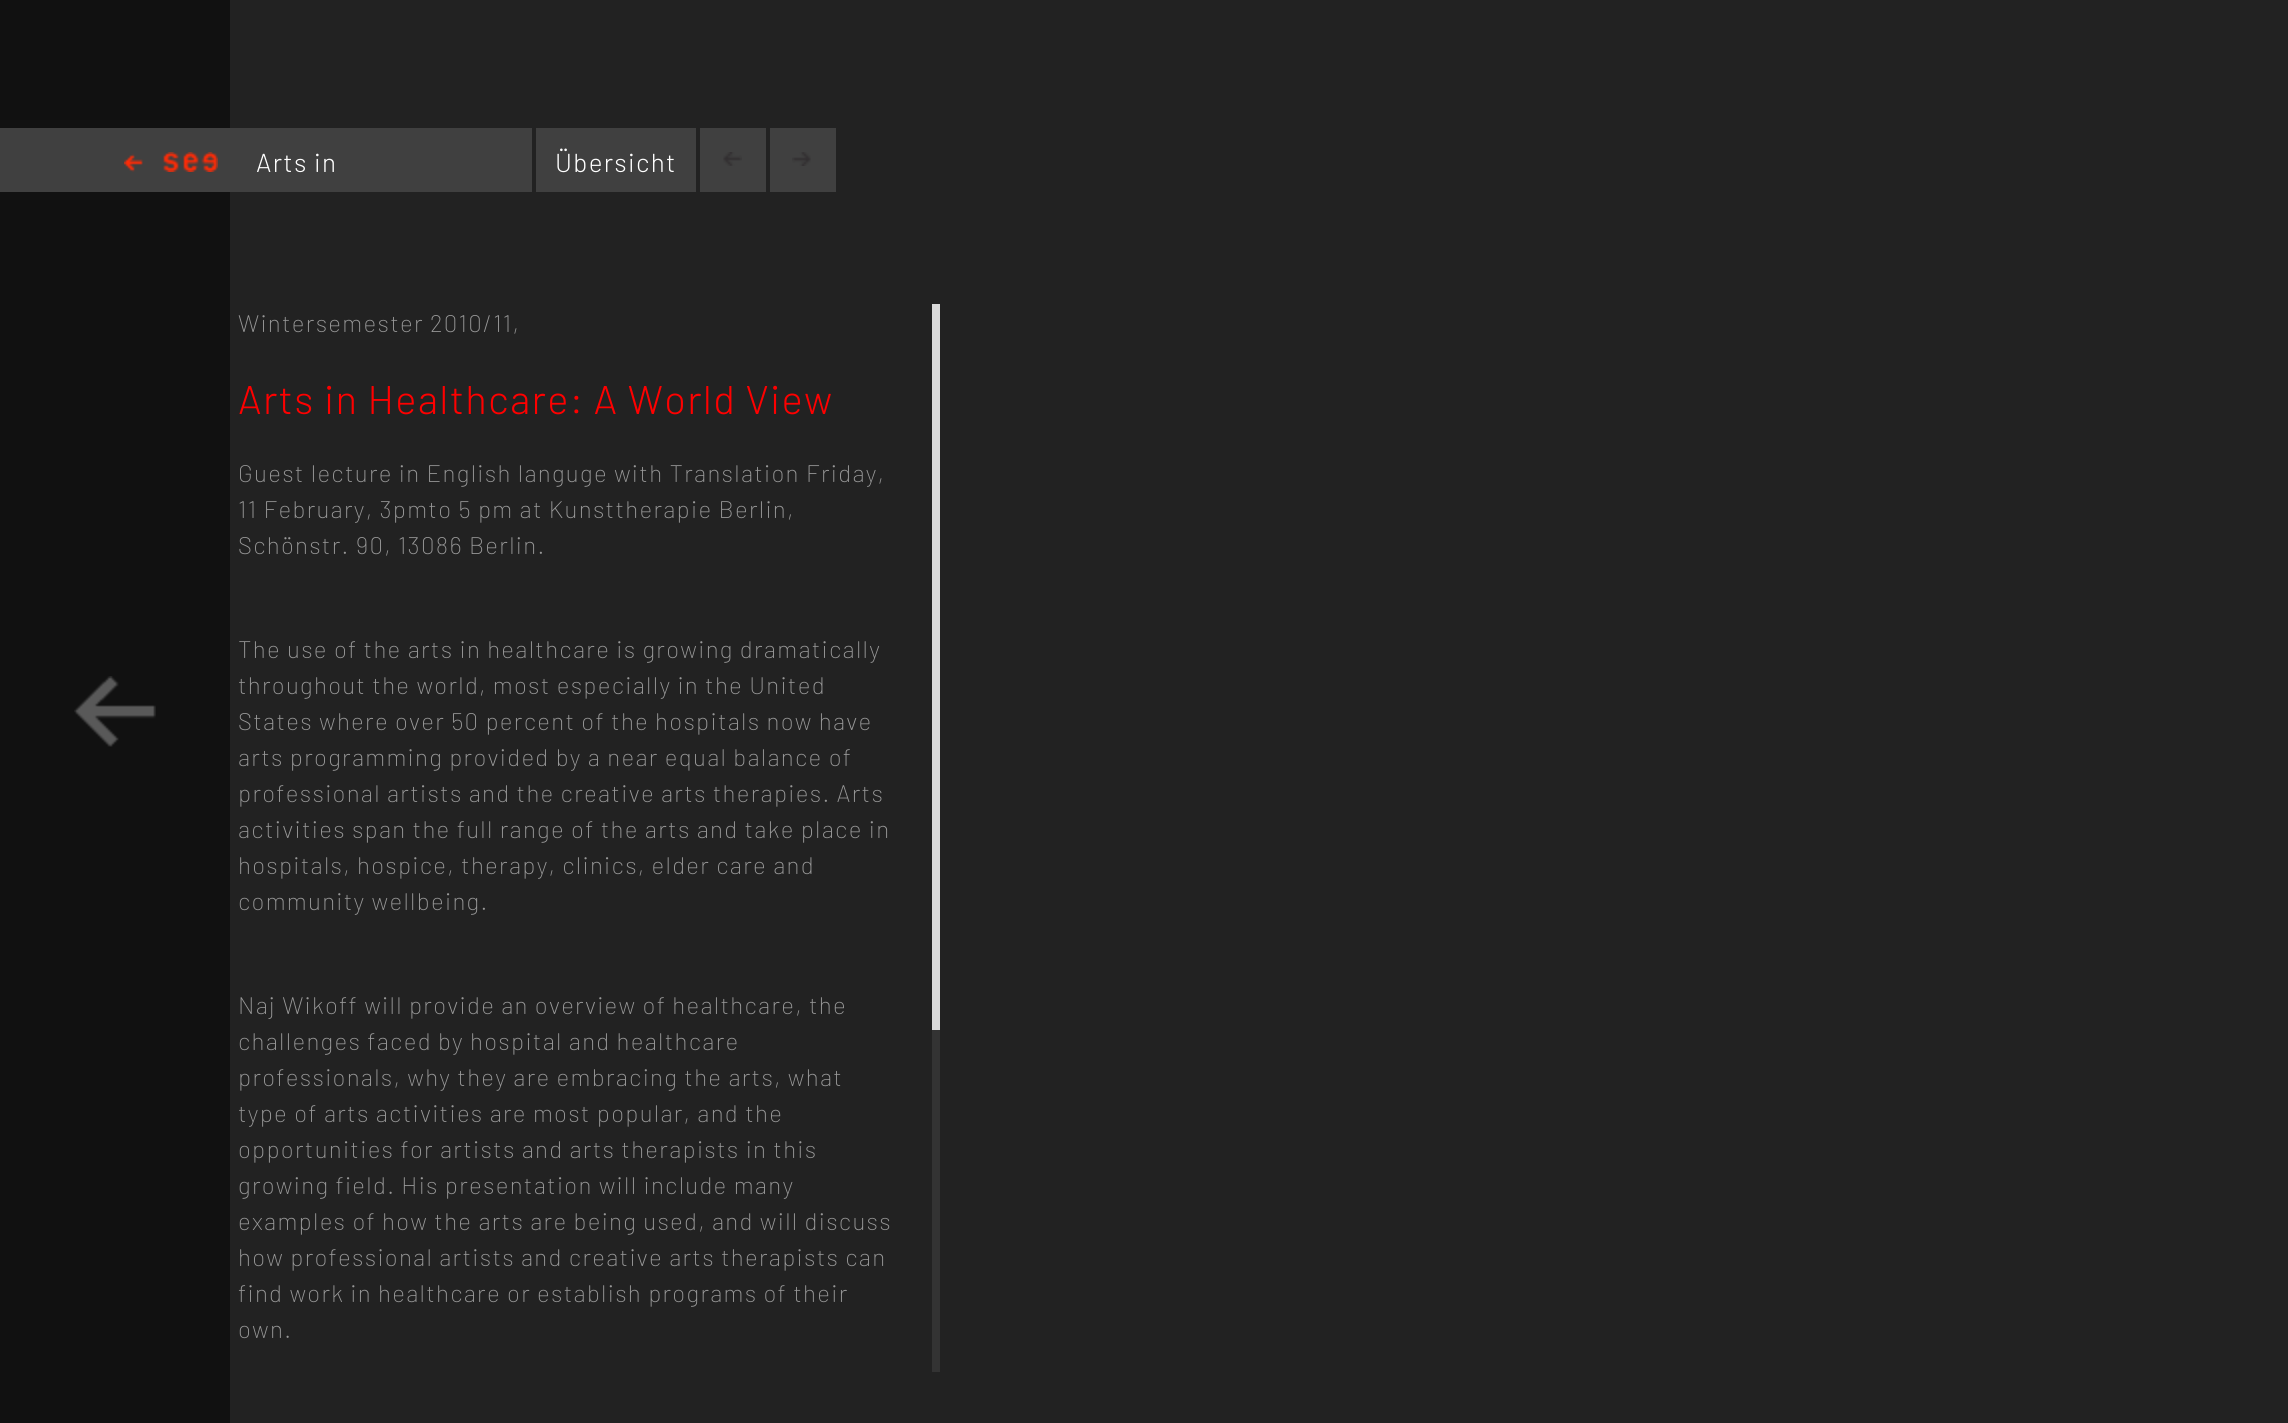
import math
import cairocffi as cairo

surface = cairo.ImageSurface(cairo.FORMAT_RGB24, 2288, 1423)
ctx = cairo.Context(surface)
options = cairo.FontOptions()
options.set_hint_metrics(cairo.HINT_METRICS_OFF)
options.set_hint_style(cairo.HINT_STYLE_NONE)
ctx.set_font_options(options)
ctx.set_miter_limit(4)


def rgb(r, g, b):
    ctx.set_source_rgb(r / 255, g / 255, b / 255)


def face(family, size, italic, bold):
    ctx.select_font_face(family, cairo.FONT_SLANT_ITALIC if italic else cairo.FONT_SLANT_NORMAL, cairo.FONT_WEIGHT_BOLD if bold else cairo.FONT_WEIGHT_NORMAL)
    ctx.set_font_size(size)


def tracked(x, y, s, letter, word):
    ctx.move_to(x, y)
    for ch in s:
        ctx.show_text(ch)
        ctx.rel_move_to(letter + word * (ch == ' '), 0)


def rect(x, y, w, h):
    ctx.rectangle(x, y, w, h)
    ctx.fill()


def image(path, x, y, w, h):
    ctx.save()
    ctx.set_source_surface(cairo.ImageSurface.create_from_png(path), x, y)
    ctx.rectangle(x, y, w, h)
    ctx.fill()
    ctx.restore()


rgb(34, 34, 34)
ctx.paint()
rgb(17, 17, 17)
rect(0, 0, 230, 1423)
image('image0.png', 74, 676, 82, 71)
rgb(64, 64, 64)
rect(0, 128, 532, 64)
image('image1.png', 124, 152, 94, 20)
face('Barlow Light', 26, 0, 0)
rgb(255, 255, 255)
tracked(256, 172, 'Arts in', 1.3, 0)
rgb(64, 64, 64)
rect(536, 128, 160, 64)
rgb(255, 255, 255)
tracked(555, 172, 'Übersicht', 1.3, 0)
rgb(64, 64, 64)
rect(700, 128, 66, 64)
image('image2.png', 723, 152, 19, 14)
rect(770, 128, 66, 64)
image('image3.png', 792, 152, 19, 14)
face('Barlow ExtraLight', 24, 0, 0)
rgb(153, 153, 153)
tracked(238, 332, 'Wintersemester 2010/11,', 1.3, 0)
face('Barlow Light', 40, 0, 0)
rgb(255, 0, 0)
tracked(238, 414, 'Arts in Healthcare: A World View', 1.3, 0)
face('Barlow ExtraLight', 24, 0, 0)
rgb(153, 153, 153)
tracked(238, 482, 'Guest lecture in English languge with Translation Friday,', 1.3, 0)
tracked(238, 518, '11 February, 3pmto 5 pm at Kunsttherapie Berlin,', 1.3, 0)
tracked(238, 554, 'Schönstr. 90, 13086 Berlin.', 1.3, 0)
tracked(238, 658, 'The use of the arts in healthcare is growing dramatically', 1.3, 0)
tracked(238, 694, 'throughout the world, most especially in the United', 1.3, 0)
tracked(238, 730, 'States where over 50 percent of the hospitals now have', 1.3, 0)
tracked(238, 766, 'arts programming provided by a near equal balance of', 1.3, 0)
tracked(238, 802, 'professional artists and the creative arts therapies. Arts', 1.3, 0)
tracked(238, 838, 'activities span the full range of the arts and take place in', 1.3, 0)
tracked(238, 874, 'hospitals, hospice, therapy, clinics, elder care and', 1.3, 0)
tracked(238, 910, 'community wellbeing.', 1.3, 0)
tracked(238, 1014, 'Naj Wikoff will provide an overview of healthcare, the', 1.3, 0)
tracked(238, 1050, 'challenges faced by hospital and healthcare', 1.3, 0)
tracked(238, 1086, 'professionals, why they are embracing the arts, what', 1.3, 0)
tracked(238, 1122, 'type of arts activities are most popular, and the', 1.3, 0)
tracked(238, 1158, 'opportunities for artists and arts therapists in this', 1.3, 0)
tracked(238, 1194, 'growing field. His presentation will include many', 1.3, 0)
tracked(238, 1230, 'examples of how the arts are being used, and will discuss', 1.3, 0)
tracked(238, 1266, 'how professional artists and creative arts therapists can', 1.3, 0)
tracked(238, 1302, 'find work in healthcare or establish programs of their', 1.3, 0)
tracked(238, 1338, 'own.', 1.3, 0)
rgb(51, 51, 51)
rect(932, 1030, 8, 342)
rgb(218, 218, 218)
rect(932, 304, 8, 726)
surface.write_to_png('render.png')
